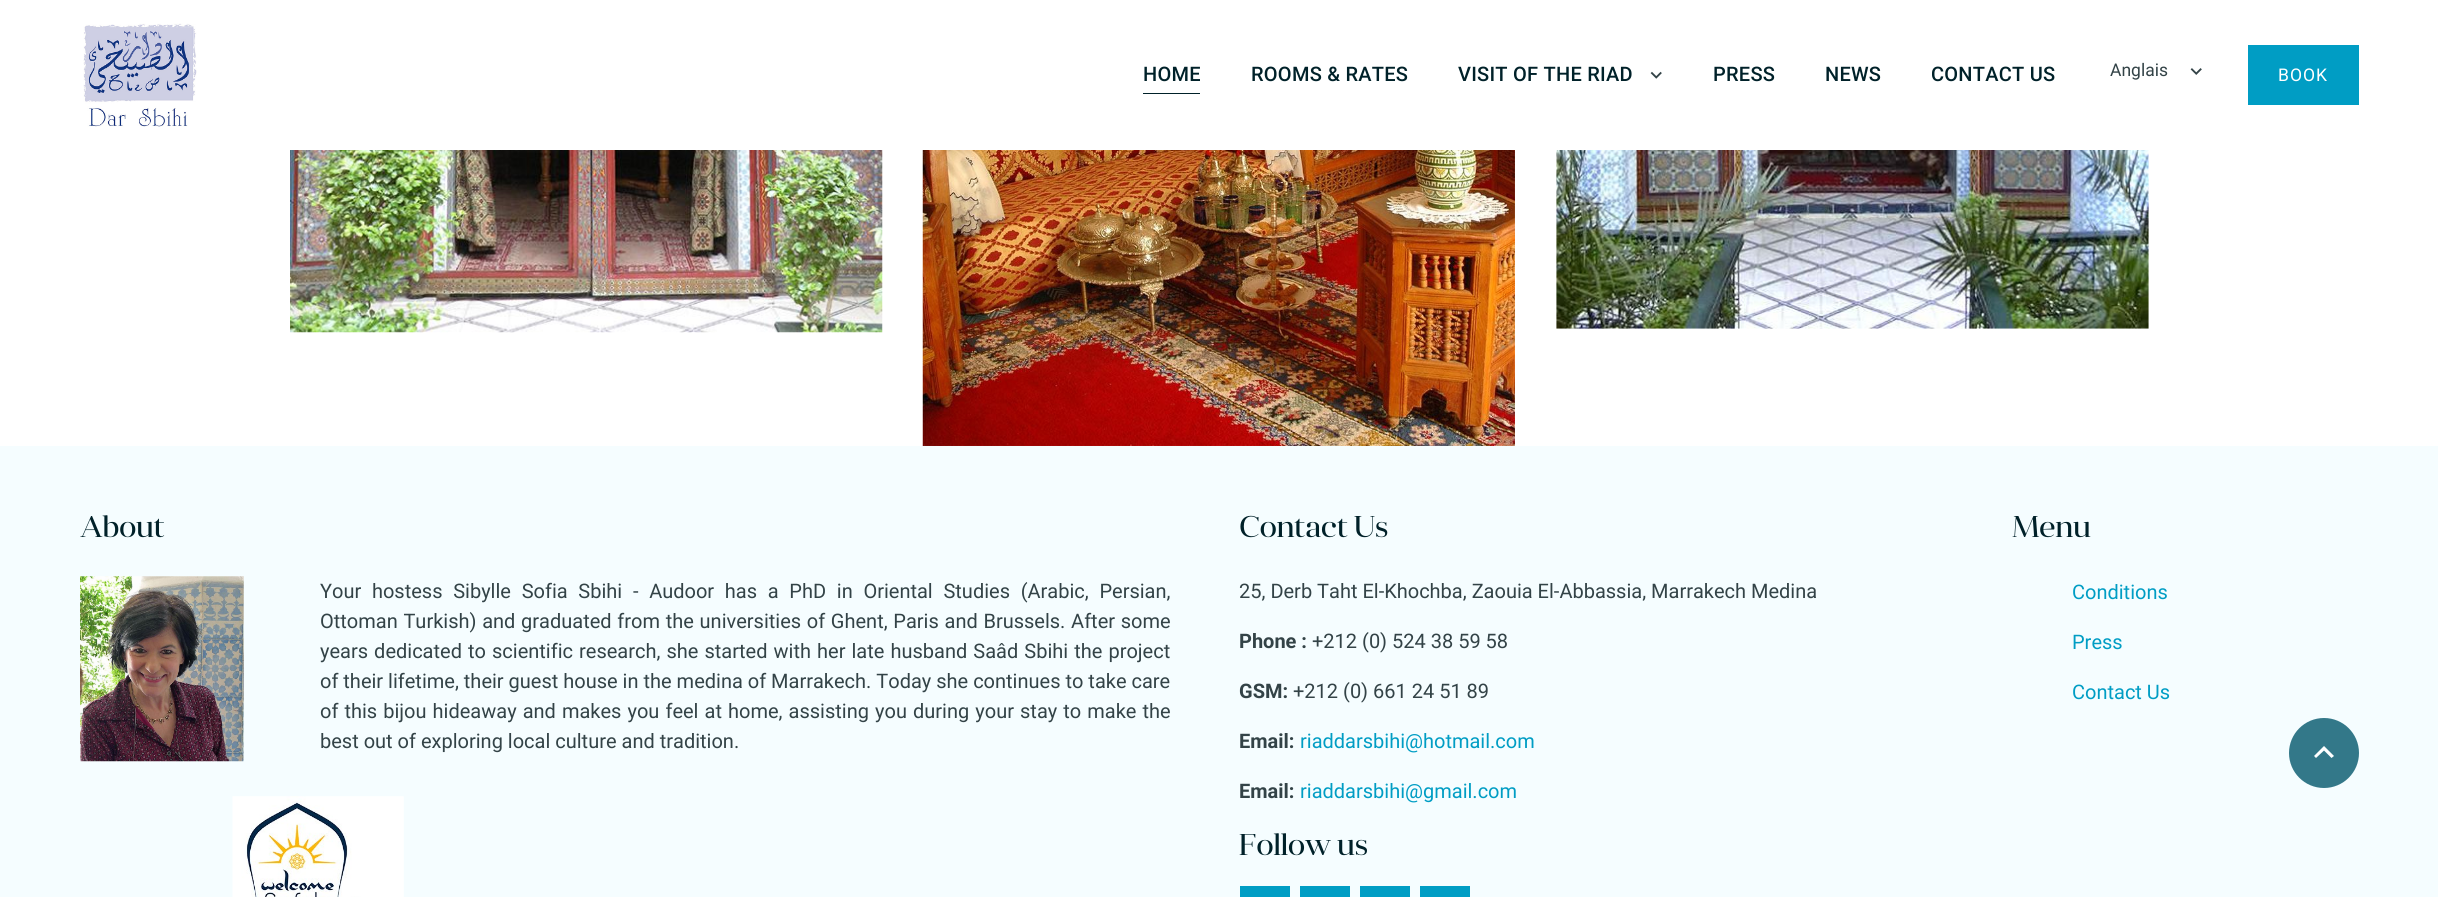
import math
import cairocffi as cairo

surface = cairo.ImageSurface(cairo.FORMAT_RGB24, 2438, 897)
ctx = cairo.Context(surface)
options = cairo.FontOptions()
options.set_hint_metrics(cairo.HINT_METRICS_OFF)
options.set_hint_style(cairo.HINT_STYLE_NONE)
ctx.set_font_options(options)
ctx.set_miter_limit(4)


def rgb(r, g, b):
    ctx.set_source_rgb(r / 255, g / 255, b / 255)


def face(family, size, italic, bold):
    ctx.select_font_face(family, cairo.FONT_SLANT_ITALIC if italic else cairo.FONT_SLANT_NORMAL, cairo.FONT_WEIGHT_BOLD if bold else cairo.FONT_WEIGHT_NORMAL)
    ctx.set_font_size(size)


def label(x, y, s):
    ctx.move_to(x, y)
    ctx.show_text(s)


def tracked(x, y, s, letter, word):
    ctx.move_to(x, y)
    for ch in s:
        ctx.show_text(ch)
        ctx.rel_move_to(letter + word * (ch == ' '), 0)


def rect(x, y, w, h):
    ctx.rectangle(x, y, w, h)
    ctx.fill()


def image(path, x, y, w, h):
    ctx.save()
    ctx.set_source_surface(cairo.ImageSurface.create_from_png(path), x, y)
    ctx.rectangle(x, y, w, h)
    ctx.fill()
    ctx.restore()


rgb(255, 255, 255)
ctx.paint()
image('image0.png', 83, 23, 114, 104)
face('Roboto Medium', 20, 0, 0)
rgb(0, 33, 41)
tracked(1143, 81, 'HOME', 0.25, 0)
rect(1143, 93, 57, 1)
tracked(1251, 81, 'ROOMS & RATES', 0.25, 0)
tracked(1458, 81, 'VISIT OF THE RIAD', 0.25, 0)
image('image1.png', 1650, 71, 12, 8)
tracked(1713, 81, 'PRESS', 0.25, 0)
tracked(1825, 81, 'NEWS', 0.25, 0)
tracked(1931, 81, 'CONTACT US', 0.25, 0)
face('Roboto', 17.5, 0, 0)
rgb(51, 67, 71)
label(2110, 76, 'Anglais')
image('image2.png', 2190, 68, 12, 7)
rgb(0, 157, 196)
rect(2248, 45, 111, 60)
rgb(255, 255, 255)
tracked(2278, 81, 'BOOK', 1, 0)
image('image3.png', 290, 150, 593, 183)
image('image4.png', 922, 150, 593, 296)
image('image5.png', 1556, 150, 593, 179)
rgb(245, 253, 255)
rect(0, 446, 2438, 451)
face('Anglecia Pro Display', 30, 0, 0)
rgb(0, 33, 41)
tracked(80, 537, 'About', -0.6, 0)
image('image6.png', 80, 576, 164, 186)
face('Roboto', 20, 0, 0)
rgb(51, 67, 71)
tracked(320, 598, 'Your hostess Sibylle Sofia Sbihi - Audoor has a PhD in Oriental Studies (Arabic, Persian,', 0, 5.75)
tracked(320, 628, 'Ottoman Turkish) and graduated from the universities of Ghent, Paris and Brussels. After some', 0, 0.75)
tracked(320, 658, 'years dedicated to scientific research, she started with her late husband Saâd Sbihi the project', 0, 1.1)
label(320, 688, 'of their lifetime, their guest house in the medina of Marrakech. Today she continues to take care')
tracked(320, 718, 'of this bijou hideaway and makes you feel at home, assisting you during your stay to make the', 0, 1.1)
label(320, 748, 'best out of exploring local culture and tradition.')
image('image7.png', 232, 796, 172, 101)
face('Anglecia Pro Display', 30, 0, 0)
rgb(0, 33, 41)
tracked(1239, 537, 'Contact Us', -0.6, 0)
face('Roboto', 20, 0, 0)
rgb(51, 67, 71)
label(1239, 598, '25, Derb Taht El-Khochba, Zaouia El-Abbassia, Marrakech Medina')
face('Roboto', 20, 0, 1)
label(1239, 648, 'Phone :')
face('Roboto', 20, 0, 0)
label(1312, 648, '+212 (0) 524 38 59 58')
face('Roboto', 20, 0, 1)
label(1239, 698, 'GSM:')
face('Roboto', 20, 0, 0)
label(1293, 698, '+212 (0) 661 24 51 89')
face('Roboto', 20, 0, 1)
label(1239, 748, 'Email:')
face('Roboto', 20, 0, 0)
rgb(0, 157, 196)
label(1300, 748, 'riaddarsbihi@hotmail.com')
face('Roboto', 20, 0, 1)
rgb(51, 67, 71)
label(1239, 798, 'Email:')
face('Roboto', 20, 0, 0)
rgb(0, 157, 196)
label(1300, 798, 'riaddarsbihi@gmail.com')
face('Anglecia Pro Display', 30, 0, 0)
rgb(0, 33, 41)
tracked(1239, 855, 'Follow us', -0.6, 0)
rgb(0, 157, 196)
rect(1240, 886, 50, 11)
rect(1300, 886, 50, 11)
rect(1360, 886, 50, 11)
rect(1420, 886, 50, 11)
rgb(0, 33, 41)
tracked(2012, 537, 'Menu', -0.6, 0)
face('Roboto', 20, 0, 0)
rgb(0, 157, 196)
label(2072, 599, 'Conditions')
label(2072, 649, 'Press')
label(2072, 699, 'Contact Us')
rgb(51, 120, 137)
ctx.new_path()
ctx.arc(2324, 753, 35, 0, 2 * math.pi)
ctx.fill()
rgb(255, 255, 255)
ctx.new_path()
ctx.move_to(2316, 758)
ctx.line_to(2314, 756)
ctx.line_to(2324, 746)
ctx.line_to(2334, 756)
ctx.line_to(2331.5, 758)
ctx.line_to(2324, 750.5)
ctx.close_path()
ctx.fill()
surface.write_to_png('render.png')
